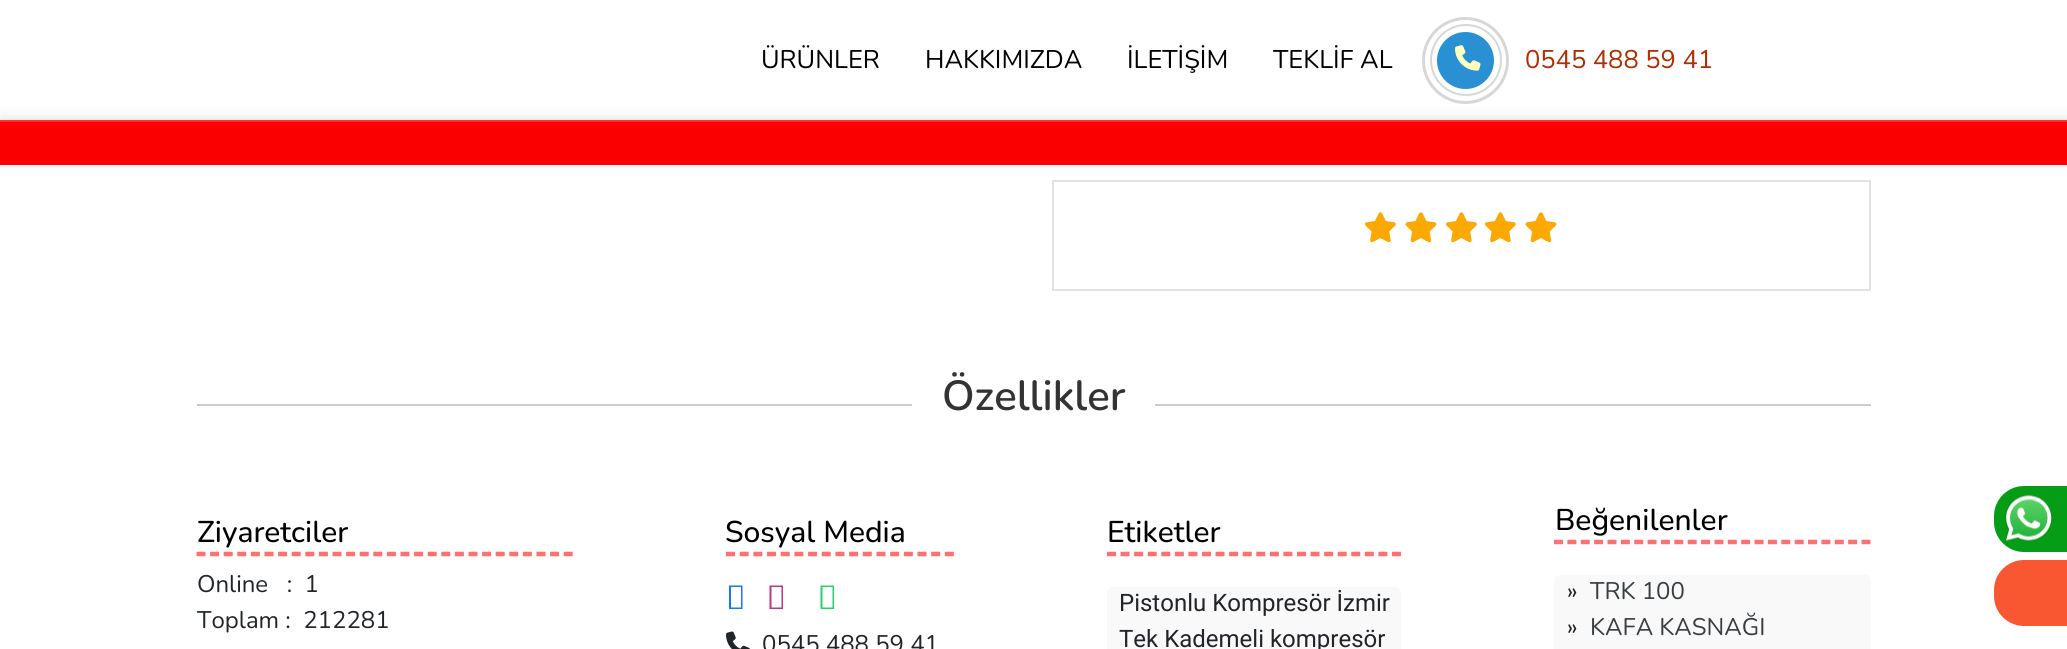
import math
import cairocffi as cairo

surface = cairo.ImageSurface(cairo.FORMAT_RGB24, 2067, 649)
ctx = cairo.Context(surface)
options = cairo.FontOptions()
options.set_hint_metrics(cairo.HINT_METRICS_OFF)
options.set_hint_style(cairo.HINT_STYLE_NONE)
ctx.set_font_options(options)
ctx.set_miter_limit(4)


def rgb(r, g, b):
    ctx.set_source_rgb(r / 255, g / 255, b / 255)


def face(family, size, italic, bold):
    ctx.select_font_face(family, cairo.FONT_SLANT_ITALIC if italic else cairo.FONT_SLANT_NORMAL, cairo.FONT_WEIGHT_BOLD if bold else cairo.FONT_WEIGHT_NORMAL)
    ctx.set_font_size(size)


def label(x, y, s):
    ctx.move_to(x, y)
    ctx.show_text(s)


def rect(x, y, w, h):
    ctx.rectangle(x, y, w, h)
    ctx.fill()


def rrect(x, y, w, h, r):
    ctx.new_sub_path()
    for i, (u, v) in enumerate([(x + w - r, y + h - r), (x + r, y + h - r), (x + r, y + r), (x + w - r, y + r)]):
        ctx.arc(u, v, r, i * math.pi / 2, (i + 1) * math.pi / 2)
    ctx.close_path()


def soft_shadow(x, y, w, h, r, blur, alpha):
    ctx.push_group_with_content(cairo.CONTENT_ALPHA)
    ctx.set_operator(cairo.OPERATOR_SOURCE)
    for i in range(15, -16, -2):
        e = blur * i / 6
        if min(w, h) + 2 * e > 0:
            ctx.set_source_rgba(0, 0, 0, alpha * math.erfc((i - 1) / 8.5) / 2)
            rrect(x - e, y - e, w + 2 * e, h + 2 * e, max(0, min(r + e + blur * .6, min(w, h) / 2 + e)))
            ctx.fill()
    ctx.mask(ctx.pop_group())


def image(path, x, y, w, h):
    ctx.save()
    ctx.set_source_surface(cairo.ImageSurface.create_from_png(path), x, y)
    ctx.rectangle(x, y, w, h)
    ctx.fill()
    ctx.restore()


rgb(255, 255, 255)
ctx.paint()
face('Nunito', 25.5, 0, 0)
rgb(0, 0, 0)
label(761, 68, 'ÜRÜNLER')
label(925, 68, 'HAKKIMIZDA')
label(1127, 68, 'İLETİŞİM')
label(1273, 68, 'TEKLİF AL')
rgb(40, 144, 211)
ctx.new_path()
ctx.arc(1465.5, 60.5, 28.5, 0, 2 * math.pi)
ctx.fill()
image('image0.png', 1455, 45, 26, 26)
ctx.arc(1466, 60, 35, 0, 2 * math.pi)
rgb(215, 215, 215)
ctx.stroke()
ctx.arc(1465.5, 60.5, 42, 0, 2 * math.pi)
ctx.set_line_width(3)
ctx.stroke()
rgb(179, 45, 0)
label(1525, 68, '0545 488 59 41')
ctx.rectangle(1053, 181, 817, 109)
rgb(226, 226, 226)
ctx.set_line_width(2)
ctx.stroke()
rgb(0, 0, 0)
soft_shadow(0, 117, 2067, 45, 0, 6, 0.1)
rgb(250, 0, 0)
rect(0, 122, 2067, 43)
rgb(251, 51, 51)
rect(0, 120, 2067, 2)
image('image1.png', 1365, 212, 31, 31)
image('image2.png', 1405, 212, 32, 31)
image('image1.png', 1446, 212, 31, 31)
image('image1.png', 1485, 212, 31, 31)
image('image2.png', 1525, 212, 32, 31)
rgb(204, 204, 204)
rect(197, 404, 1674, 2)
rgb(255, 255, 255)
rect(912, 404, 243, 2)
face('Nunito SemiBold', 42, 0, 0)
rgb(51, 51, 51)
label(942, 410, 'Özellikler')
ctx.new_path()
ctx.move_to(196.5, 554)
ctx.line_to(573, 554)
rgb(255, 113, 113)
ctx.set_line_width(4.5)
ctx.set_dash([9, 4.6])
ctx.stroke()
face('Nunito Medium', 30, 0, 0)
rgb(0, 0, 0)
label(197, 542, 'Ziyaretciler')
face('Nunito', 24, 0, 0)
rgb(33, 37, 41)
label(197, 592, 'Online   :  1')
label(197, 628, 'Toplam :  212281')
ctx.new_path()
ctx.move_to(726, 554)
ctx.line_to(954, 554)
rgb(255, 113, 113)
ctx.set_dash([9, 4.68])
ctx.stroke()
face('Nunito Medium', 30, 0, 0)
rgb(0, 0, 0)
label(725, 542, 'Sosyal Media')
rgb(24, 119, 242)
ctx.new_path()
ctx.move_to(729, 609)
ctx.line_to(729, 585.5)
ctx.line_to(742.5, 585.5)
ctx.line_to(742.5, 609)
ctx.close_path()
ctx.move_to(731, 607.5)
ctx.line_to(741, 607.5)
ctx.line_to(741, 587)
ctx.line_to(731, 587)
ctx.close_path()
ctx.fill()
rgb(193, 53, 132)
ctx.new_path()
ctx.move_to(769.5, 609)
ctx.line_to(769.5, 585.5)
ctx.line_to(783, 585.5)
ctx.line_to(783, 609)
ctx.close_path()
ctx.move_to(771.5, 607.5)
ctx.line_to(781.5, 607.5)
ctx.line_to(781.5, 587)
ctx.line_to(771.5, 587)
ctx.close_path()
ctx.fill()
rgb(37, 211, 102)
ctx.new_path()
ctx.move_to(820.5, 609)
ctx.line_to(820.5, 585.5)
ctx.line_to(834, 585.5)
ctx.line_to(834, 609)
ctx.close_path()
ctx.move_to(822.5, 607.5)
ctx.line_to(832.5, 607.5)
ctx.line_to(832.5, 587)
ctx.line_to(822.5, 587)
ctx.close_path()
ctx.fill()
image('image3.png', 726, 631, 24, 18)
face('Nunito', 24, 0, 0)
rgb(33, 37, 41)
label(762, 652, '0545 488 59 41')
ctx.new_path()
ctx.move_to(1107, 554)
ctx.line_to(1401, 554)
rgb(255, 113, 113)
ctx.set_dash([9, 4.57])
ctx.stroke()
face('Nunito Medium', 30, 0, 0)
rgb(0, 0, 0)
label(1107, 542, 'Etiketler')
rgb(249, 249, 249)
rrect(1107, 587, 294, 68, 6)
ctx.fill()
face('Roboto', 24, 0, 0)
rgb(33, 37, 41)
label(1119, 611, 'Pistonlu Kompresör İzmir')
label(1119, 647, 'Tek Kademeli kompresör')
ctx.new_path()
ctx.move_to(1554, 542)
ctx.line_to(1870.5, 542)
rgb(255, 113, 113)
ctx.set_dash([9, 4.37])
ctx.stroke()
face('Nunito Medium', 30, 0, 0)
rgb(0, 0, 0)
label(1555, 530, 'Beğenilenler')
rgb(249, 249, 249)
rrect(1554, 575, 317, 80, 6)
ctx.fill()
face('Nunito', 24, 0, 0)
rgb(33, 37, 41)
label(1567, 599, '»')
rgb(56, 62, 66)
label(1590, 599, 'TRK 100')
rgb(33, 37, 41)
label(1567, 635, '»')
rgb(56, 62, 66)
label(1590, 635, 'KAFA KASNAĞI')
rgb(6, 157, 22)
ctx.new_path()
ctx.move_to(2024, 486)
ctx.line_to(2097, 486)
ctx.line_to(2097, 552)
ctx.line_to(2024, 552)
ctx.curve_to(2007.5, 552, 1994, 538.5, 1994, 522)
ctx.line_to(1994, 516)
ctx.curve_to(1994, 499.5, 2007.5, 486, 2024, 486)
ctx.close_path()
ctx.fill()
image('image4.png', 2005, 494, 48, 48)
rgb(249, 87, 50)
ctx.new_path()
ctx.move_to(2024, 560)
ctx.line_to(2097, 560)
ctx.line_to(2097, 626)
ctx.line_to(2024, 626)
ctx.curve_to(2007.5, 626, 1994, 612.5, 1994, 596)
ctx.line_to(1994, 590)
ctx.curve_to(1994, 573.5, 2007.5, 560, 2024, 560)
ctx.close_path()
ctx.fill()
surface.write_to_png('render.png')
